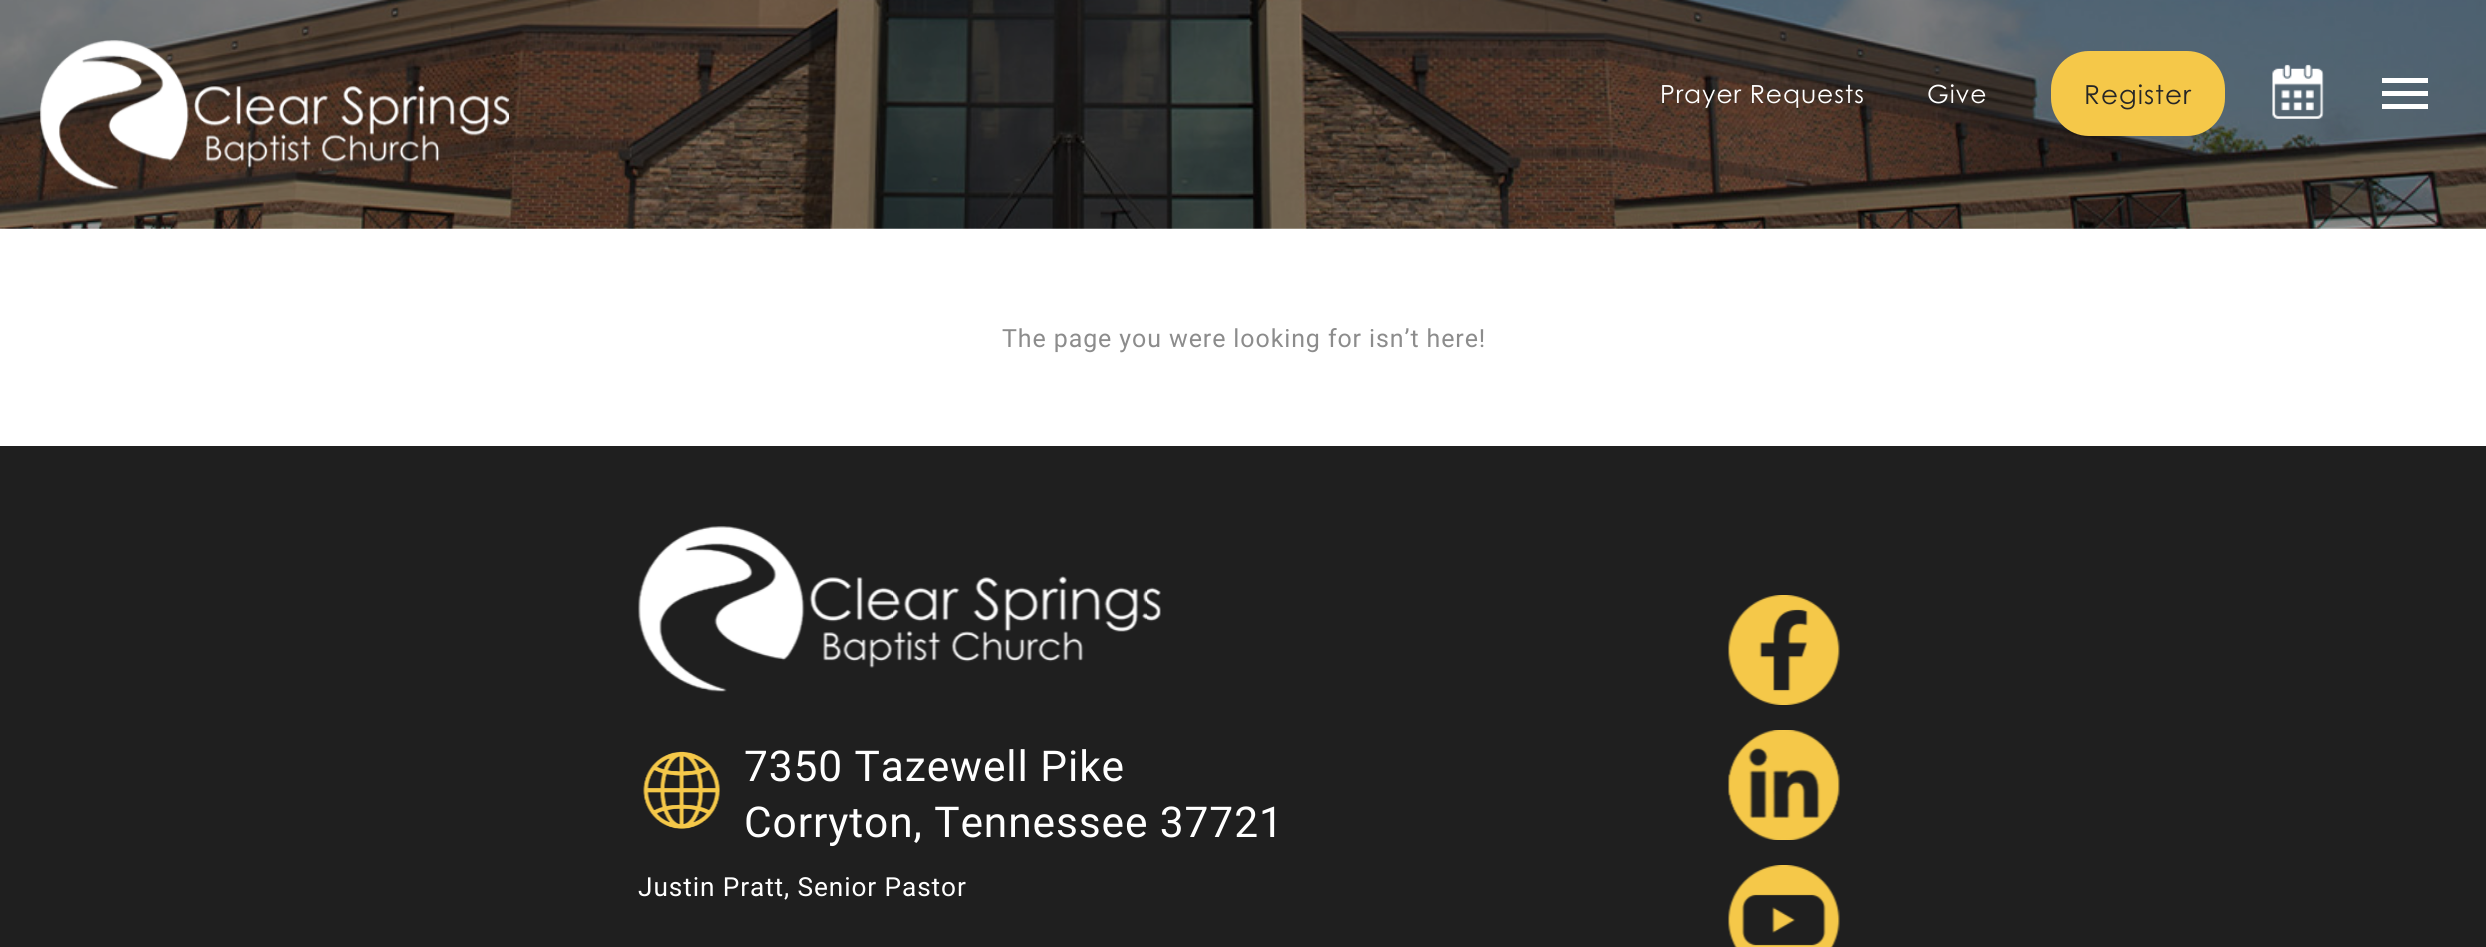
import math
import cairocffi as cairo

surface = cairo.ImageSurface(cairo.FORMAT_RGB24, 2486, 947)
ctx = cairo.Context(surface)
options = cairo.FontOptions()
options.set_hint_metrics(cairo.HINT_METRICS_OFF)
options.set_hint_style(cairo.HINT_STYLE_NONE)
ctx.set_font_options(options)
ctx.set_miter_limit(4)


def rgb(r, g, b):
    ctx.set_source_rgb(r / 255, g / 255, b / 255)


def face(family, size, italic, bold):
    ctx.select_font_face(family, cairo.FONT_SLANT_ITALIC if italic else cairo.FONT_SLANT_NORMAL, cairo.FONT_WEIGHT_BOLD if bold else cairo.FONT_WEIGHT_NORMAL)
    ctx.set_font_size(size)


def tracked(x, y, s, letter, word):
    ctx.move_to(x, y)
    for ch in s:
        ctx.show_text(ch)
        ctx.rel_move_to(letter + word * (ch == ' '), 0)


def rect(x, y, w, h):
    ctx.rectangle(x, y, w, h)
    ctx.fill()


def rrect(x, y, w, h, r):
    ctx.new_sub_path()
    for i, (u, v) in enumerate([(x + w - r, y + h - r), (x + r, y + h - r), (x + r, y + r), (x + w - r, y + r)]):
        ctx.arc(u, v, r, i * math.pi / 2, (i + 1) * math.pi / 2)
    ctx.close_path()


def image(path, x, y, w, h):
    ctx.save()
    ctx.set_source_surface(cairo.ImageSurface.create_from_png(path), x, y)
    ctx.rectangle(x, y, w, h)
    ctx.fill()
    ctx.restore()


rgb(255, 255, 255)
ctx.paint()
image('image0.png', 0, 0, 2486, 229)
image('image1.png', 40, 40, 469, 149)
face('Century Gothic', 25, 0, 0)
rgb(255, 255, 255)
tracked(1660, 103, 'Prayer Requests', 0.9, 0)
tracked(1927, 103, 'Give', 0.9, 0)
rgb(245, 200, 73)
rrect(2051, 51, 174, 85, 38)
ctx.fill()
face('Century Gothic', 26.25, 0, 0)
rgb(38, 38, 38)
tracked(2084, 104, 'Register', 1, 0)
image('image2.png', 2272, 64, 52, 55)
rgb(255, 255, 255)
ctx.new_path()
ctx.move_to(2382, 78)
ctx.line_to(2428, 78)
ctx.line_to(2428, 83)
ctx.line_to(2382, 83)
ctx.close_path()
ctx.move_to(2382, 96)
ctx.line_to(2382, 91)
ctx.line_to(2428, 91)
ctx.line_to(2428, 96)
ctx.close_path()
ctx.move_to(2382, 109)
ctx.line_to(2382, 104)
ctx.line_to(2428, 104)
ctx.line_to(2428, 109)
ctx.close_path()
ctx.fill()
face('Roboto', 25, 0, 0)
rgb(140, 140, 140)
tracked(1002, 347, 'The page you were looking for isn’t here!', 0.9, 0)
rgb(31, 31, 31)
rect(0, 446, 2486, 501)
image('image3.png', 638, 526, 523, 166)
image('image4.png', 643, 751, 77, 78)
face('Roboto', 42.5, 0, 0)
rgb(255, 255, 255)
tracked(744, 781, '7350 Tazewell Pike', 0.9, 0)
tracked(744, 837, 'Corryton, Tennessee 37721', 0.9, 0)
face('Roboto', 26.25, 0, 0)
tracked(638, 896, 'Justin Pratt, Senior Pastor', 0.9, 0)
image('image5.png', 1728, 595, 112, 110)
image('image6.png', 1728, 730, 112, 110)
image('image7.png', 1728, 865, 112, 82)
surface.write_to_png('render.png')
